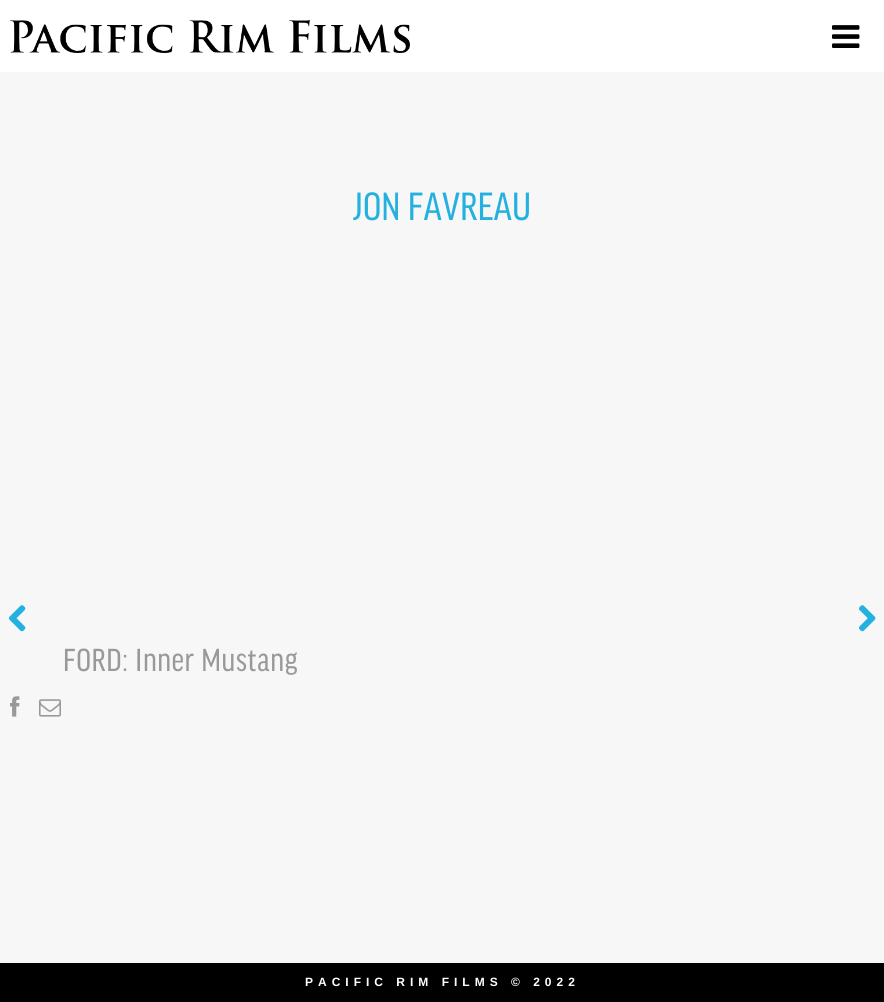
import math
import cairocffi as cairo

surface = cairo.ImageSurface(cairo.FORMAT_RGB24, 884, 1002)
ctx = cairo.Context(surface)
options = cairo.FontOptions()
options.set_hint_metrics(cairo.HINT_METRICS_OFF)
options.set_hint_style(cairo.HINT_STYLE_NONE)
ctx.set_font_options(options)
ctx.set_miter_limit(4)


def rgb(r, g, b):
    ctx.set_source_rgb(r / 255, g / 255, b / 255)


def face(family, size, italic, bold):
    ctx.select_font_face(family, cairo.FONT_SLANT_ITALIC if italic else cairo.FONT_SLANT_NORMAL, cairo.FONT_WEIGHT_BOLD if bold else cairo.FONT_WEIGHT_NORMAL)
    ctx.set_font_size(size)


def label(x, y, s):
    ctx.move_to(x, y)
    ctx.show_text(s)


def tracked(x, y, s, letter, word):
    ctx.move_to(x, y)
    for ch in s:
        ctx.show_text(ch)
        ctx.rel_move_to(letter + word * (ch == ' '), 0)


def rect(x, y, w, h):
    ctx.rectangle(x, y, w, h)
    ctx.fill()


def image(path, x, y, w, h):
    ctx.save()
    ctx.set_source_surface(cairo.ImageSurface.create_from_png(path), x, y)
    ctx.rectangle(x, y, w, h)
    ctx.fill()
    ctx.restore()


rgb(247, 247, 247)
ctx.paint()
rgb(255, 255, 255)
rect(0, 0, 884, 72)
image('image0.png', 832, 25, 28, 23)
image('image1.png', 10, 20, 400, 33)
face('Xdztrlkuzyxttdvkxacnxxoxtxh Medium', 42, 0, 0)
rgb(37, 177, 223)
label(353, 220, 'JON FAVREAU')
image('image2.png', 8, 605, 18, 27)
image('image3.png', 859, 605, 17, 27)
face('Xdztrlkuzyxttdvkxacnxxoxtxh Medium', 34, 0, 0)
rgb(153, 153, 153)
tracked(63, 671, 'FORD: Inner Mustang', 0.5, 0)
image('image4.png', 10, 696, 10, 21)
image('image5.png', 39, 699, 22, 18)
rgb(0, 0, 0)
rect(0, 963, 884, 39)
face('Liberation Sans', 12, 0, 1)
rgb(255, 255, 255)
tracked(305, 986, 'PACIFIC RIM FILMS © 2022', 5, 0)
surface.write_to_png('render.png')
